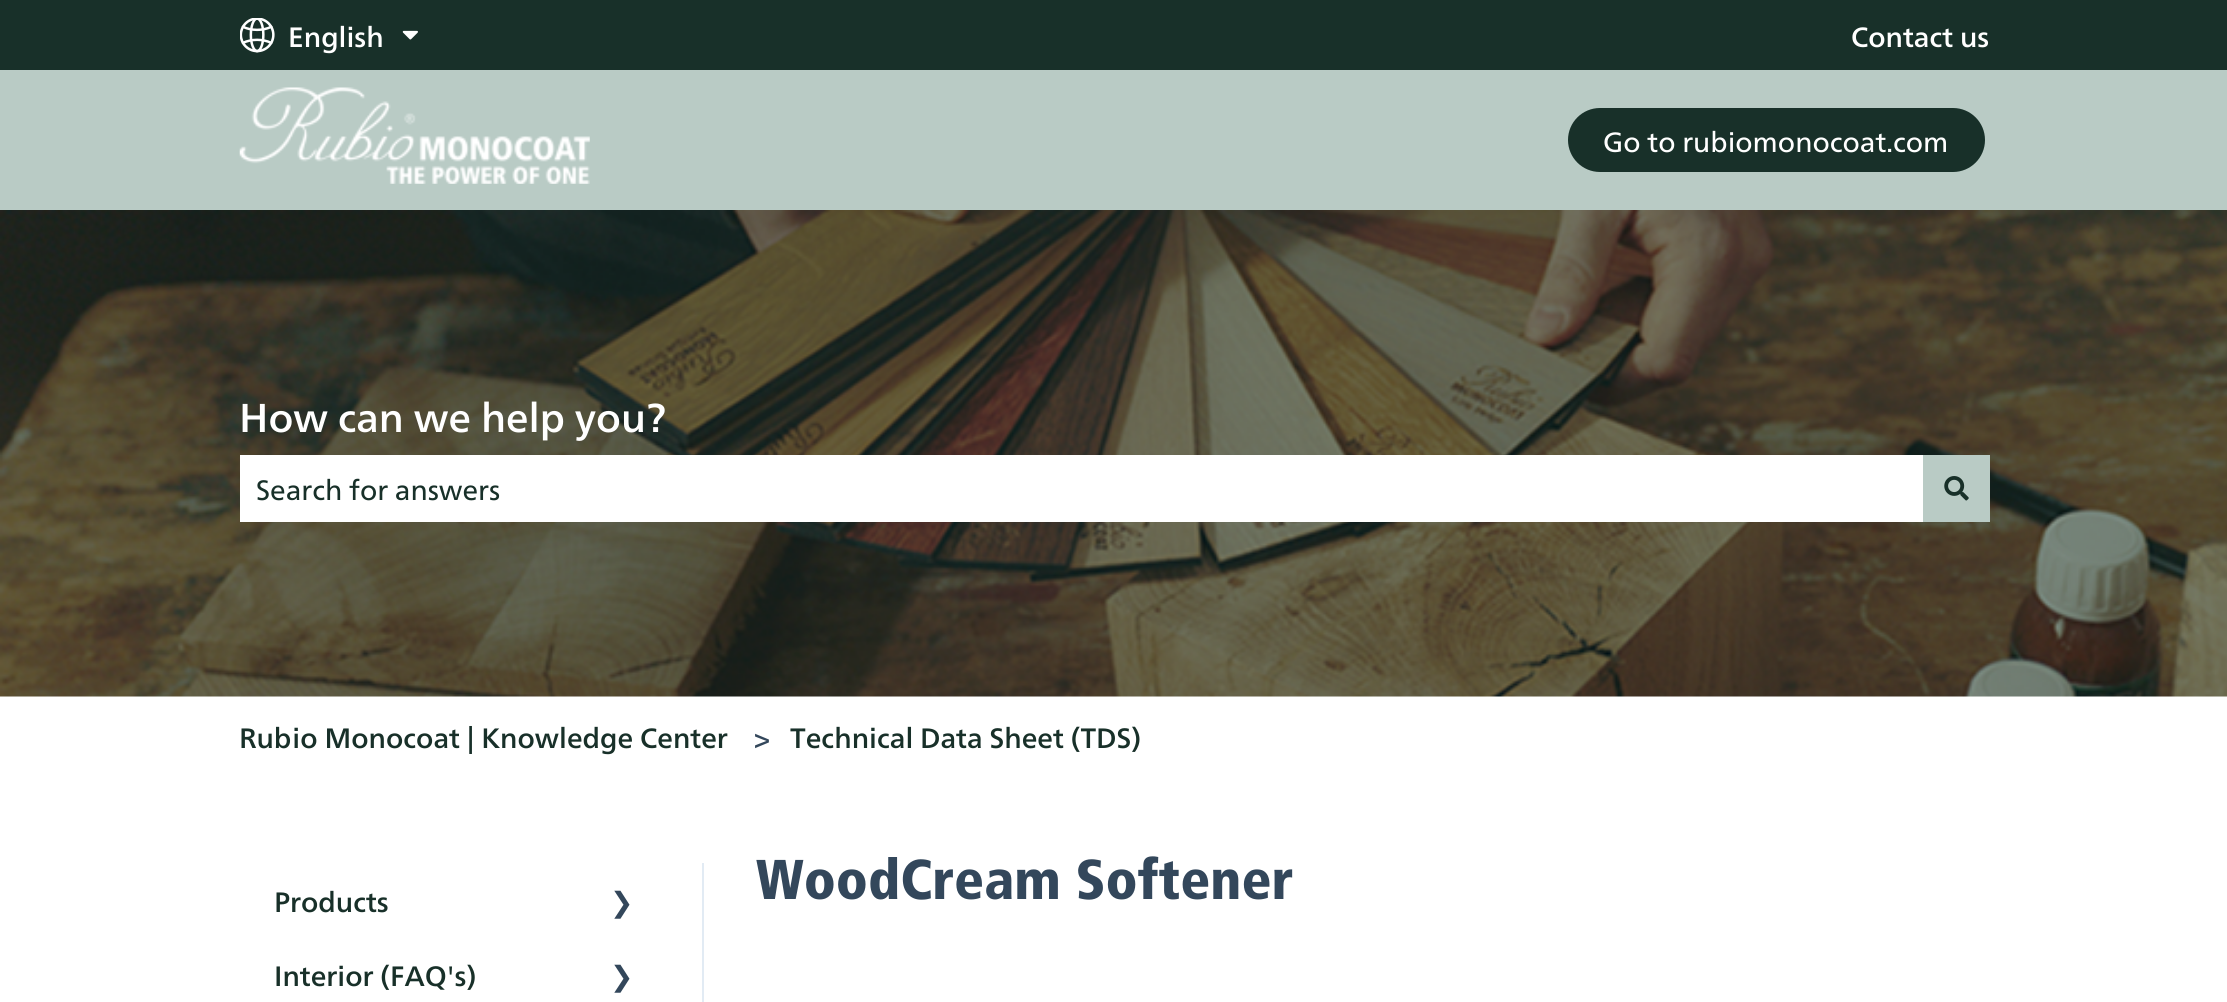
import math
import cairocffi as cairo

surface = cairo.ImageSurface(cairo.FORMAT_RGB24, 2227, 1002)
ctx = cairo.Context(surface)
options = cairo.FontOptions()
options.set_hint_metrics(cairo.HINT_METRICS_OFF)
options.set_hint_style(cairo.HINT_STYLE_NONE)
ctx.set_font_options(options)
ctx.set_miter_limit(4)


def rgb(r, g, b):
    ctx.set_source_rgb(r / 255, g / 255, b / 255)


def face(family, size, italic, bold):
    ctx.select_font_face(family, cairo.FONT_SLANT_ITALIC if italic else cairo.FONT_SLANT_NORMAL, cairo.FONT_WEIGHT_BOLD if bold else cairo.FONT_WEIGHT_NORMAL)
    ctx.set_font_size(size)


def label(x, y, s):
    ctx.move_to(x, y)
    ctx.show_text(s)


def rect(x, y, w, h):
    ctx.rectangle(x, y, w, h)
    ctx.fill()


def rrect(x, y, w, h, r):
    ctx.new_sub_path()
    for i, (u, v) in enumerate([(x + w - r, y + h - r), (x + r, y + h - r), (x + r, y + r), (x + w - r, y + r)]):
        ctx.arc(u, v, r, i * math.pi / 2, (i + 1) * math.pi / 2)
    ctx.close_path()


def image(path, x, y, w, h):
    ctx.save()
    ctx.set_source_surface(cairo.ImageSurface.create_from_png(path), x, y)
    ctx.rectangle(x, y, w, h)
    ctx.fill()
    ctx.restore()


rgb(255, 255, 255)
ctx.paint()
rgb(24, 48, 41)
rect(0, 0, 2227, 70)
image('image0.png', 240, 18, 35, 35)
face('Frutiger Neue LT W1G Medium', 28, 0, 0)
rgb(255, 255, 255)
label(288, 47, 'English')
image('image1.png', 402, 30, 16, 10)
label(1851, 47, 'Contact us')
rgb(185, 203, 197)
rect(0, 70, 2227, 140)
image('image2.png', 239, 87, 351, 97)
rgb(24, 48, 41)
rrect(1565.5, 105.5, 422, 69, 34.5)
ctx.fill_preserve()
rgb(185, 203, 197)
ctx.set_line_width(5)
ctx.stroke()
face('Frutiger Neue LT W1G', 28, 0, 0)
rgb(255, 255, 255)
label(1603, 152, 'Go to rubiomonocoat.com')
image('image3.png', 0, 210, 2227, 487)
face('Frutiger Neue LT W1G Medium', 40.25, 0, 0)
label(239, 432, 'How can we help you?')
rect(240, 455, 1683, 67)
face('Frutiger Neue LT W1G', 28, 0, 0)
rgb(24, 48, 41)
label(256, 500, 'Search for answers')
rgb(185, 203, 197)
rect(1923, 455, 67, 67)
image('image4.png', 1944, 476, 25, 25)
face('Frutiger Neue LT W1G Medium', 28, 0, 0)
rgb(24, 48, 41)
label(239, 748, 'Rubio Monocoat | Knowledge Center')
face('Frutiger Neue LT W1G', 28, 0, 0)
rgb(51, 71, 91)
label(754, 748, '>')
face('Frutiger Neue LT W1G Medium', 28, 0, 0)
rgb(24, 48, 41)
label(790, 748, 'Technical Data Sheet (TDS)')
face('Frutiger Black', 56, 0, 0)
rgb(51, 71, 91)
label(756, 899, 'WoodCream Softener')
rgb(226, 235, 244)
rect(702, 863, 2, 139)
face('Frutiger Neue LT W1G Medium', 28, 0, 0)
rgb(24, 48, 41)
label(274, 912, 'Products')
face('DejaVu Sans', 28, 0, 0)
rgb(51, 71, 91)
label(610, 912, '❯')
face('Frutiger Neue LT W1G Medium', 28, 0, 0)
rgb(24, 48, 41)
label(274, 986, 'Interior (FAQ\'s)')
face('DejaVu Sans', 28, 0, 0)
rgb(51, 71, 91)
label(610, 986, '❯')
surface.write_to_png('render.png')
